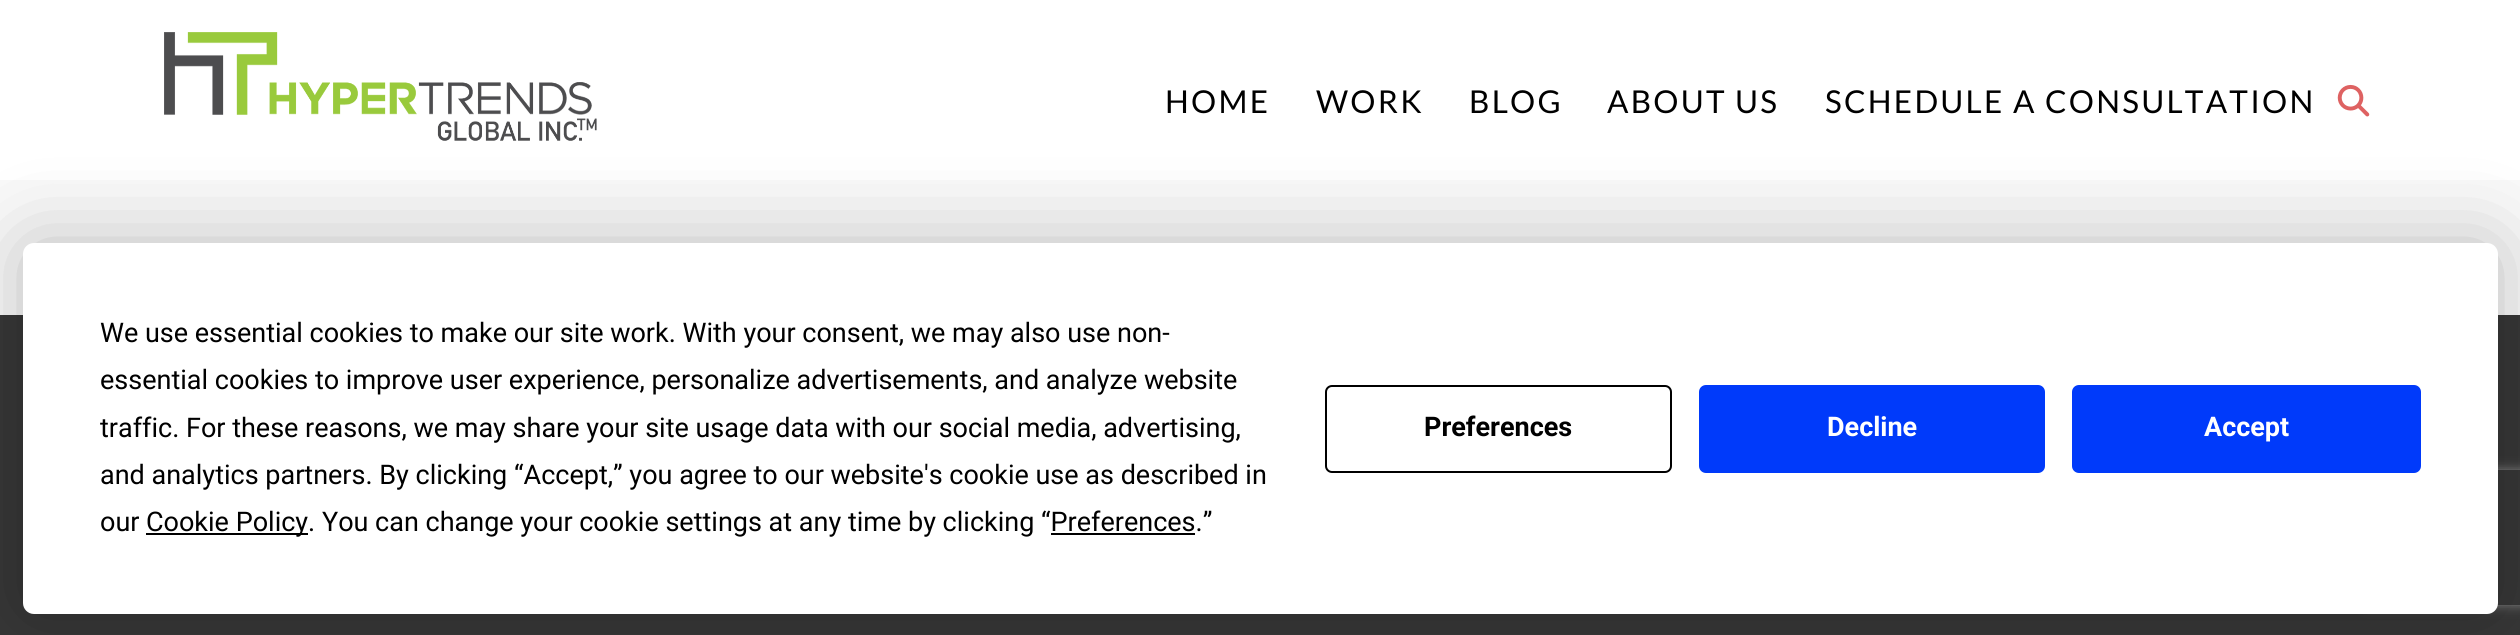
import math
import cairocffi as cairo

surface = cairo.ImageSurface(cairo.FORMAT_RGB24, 2520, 635)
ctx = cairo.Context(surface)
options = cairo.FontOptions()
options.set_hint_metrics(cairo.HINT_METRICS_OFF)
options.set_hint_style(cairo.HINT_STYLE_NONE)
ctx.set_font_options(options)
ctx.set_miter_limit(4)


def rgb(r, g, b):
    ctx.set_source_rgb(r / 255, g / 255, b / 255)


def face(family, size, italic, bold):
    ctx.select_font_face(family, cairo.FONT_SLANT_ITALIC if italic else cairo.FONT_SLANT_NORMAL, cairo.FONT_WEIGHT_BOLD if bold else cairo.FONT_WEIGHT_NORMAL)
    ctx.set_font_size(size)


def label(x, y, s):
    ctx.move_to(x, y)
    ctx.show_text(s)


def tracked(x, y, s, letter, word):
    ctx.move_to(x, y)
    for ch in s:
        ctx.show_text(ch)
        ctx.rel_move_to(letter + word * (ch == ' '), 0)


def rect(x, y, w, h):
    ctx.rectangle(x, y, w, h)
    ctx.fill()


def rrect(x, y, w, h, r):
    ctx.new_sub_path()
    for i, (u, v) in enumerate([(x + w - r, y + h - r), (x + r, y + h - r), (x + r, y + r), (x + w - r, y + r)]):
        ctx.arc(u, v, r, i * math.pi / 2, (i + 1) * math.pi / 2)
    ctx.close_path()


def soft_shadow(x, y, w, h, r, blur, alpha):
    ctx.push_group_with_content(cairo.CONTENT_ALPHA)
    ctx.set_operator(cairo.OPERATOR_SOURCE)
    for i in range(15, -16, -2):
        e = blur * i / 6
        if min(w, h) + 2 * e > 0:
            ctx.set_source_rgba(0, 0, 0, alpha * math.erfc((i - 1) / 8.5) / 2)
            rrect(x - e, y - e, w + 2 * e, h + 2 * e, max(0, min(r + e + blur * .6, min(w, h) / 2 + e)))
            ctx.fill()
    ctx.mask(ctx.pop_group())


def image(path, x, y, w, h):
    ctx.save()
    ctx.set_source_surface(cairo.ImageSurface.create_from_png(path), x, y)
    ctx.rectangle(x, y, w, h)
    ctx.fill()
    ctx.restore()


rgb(249, 249, 249)
ctx.paint()
rgb(255, 255, 255)
rect(0, 0, 2520, 180)
image('image0.png', 164, 32, 433, 109)
face('Lato', 31.5, 0, 0)
rgb(0, 0, 0)
tracked(1165, 113, 'HOME', 2.25, 0)
tracked(1316, 113, 'WORK', 2.25, 0)
tracked(1469, 113, 'BLOG', 2.25, 0)
tracked(1607, 113, 'ABOUT US', 2.25, 0)
tracked(1825, 113, 'SCHEDULE A CONSULTATION', 2.25, 0)
image('image1.png', 2337, 84, 33, 33)
rgb(55, 55, 55)
rect(0, 315, 2520, 320)
rgb(0, 0, 0)
soft_shadow(23, 243, 2475, 371, 11, 39.5, 0.25)
ctx.save()
ctx.set_fill_rule(cairo.FILL_RULE_EVEN_ODD)
ctx.new_path()
ctx.move_to(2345, 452)
ctx.line_to(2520, 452)
ctx.line_to(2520, 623)
ctx.line_to(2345, 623)
ctx.close_path()
ctx.move_to(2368, 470)
ctx.line_to(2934, 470)
ctx.curve_to(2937, 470, 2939, 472, 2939, 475)
ctx.line_to(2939, 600)
ctx.curve_to(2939, 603, 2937, 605, 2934, 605)
ctx.line_to(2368, 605)
ctx.curve_to(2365, 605, 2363, 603, 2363, 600)
ctx.line_to(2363, 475)
ctx.curve_to(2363, 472, 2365, 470, 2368, 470)
ctx.close_path()
ctx.clip()
rgb(128, 128, 128)
soft_shadow(2363, 470, 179, 135, 5, 5.5, 1)
ctx.restore()
rgb(255, 255, 255)
rrect(23, 243, 2475, 371, 11)
ctx.fill()
face('Roboto', 27, 0, 0)
rgb(0, 0, 0)
label(100, 342, 'We use essential cookies to make our site work. With your consent, we may also use non-')
label(100, 389, 'essential cookies to improve user experience, personalize advertisements, and analyze website')
label(100, 437, 'traffic. For these reasons, we may share your site usage data with our social media, advertising,')
label(100, 484, 'and analytics partners. By clicking “Accept,” you agree to our website\'s cookie use as described in')
label(100, 531, 'our')
rect(146, 533, 162, 2)
label(146, 531, 'Cookie Policy. You can change your cookie settings at any time by clicking “Preferences.”')
rect(1051, 533, 144, 2)
rrect(1326, 386, 345, 86, 6)
ctx.stroke()
face('Roboto', 27, 0, 1)
label(1424, 436, 'Preferences')
rgb(0, 58, 250)
rrect(1700, 386, 344, 86, 6)
ctx.fill_preserve()
ctx.stroke()
rgb(255, 255, 255)
label(1827, 436, 'Decline')
rgb(0, 58, 250)
rrect(2073, 386, 347, 86, 6)
ctx.fill_preserve()
ctx.stroke()
rgb(255, 255, 255)
label(2204, 436, 'Accept')
surface.write_to_png('render.png')
